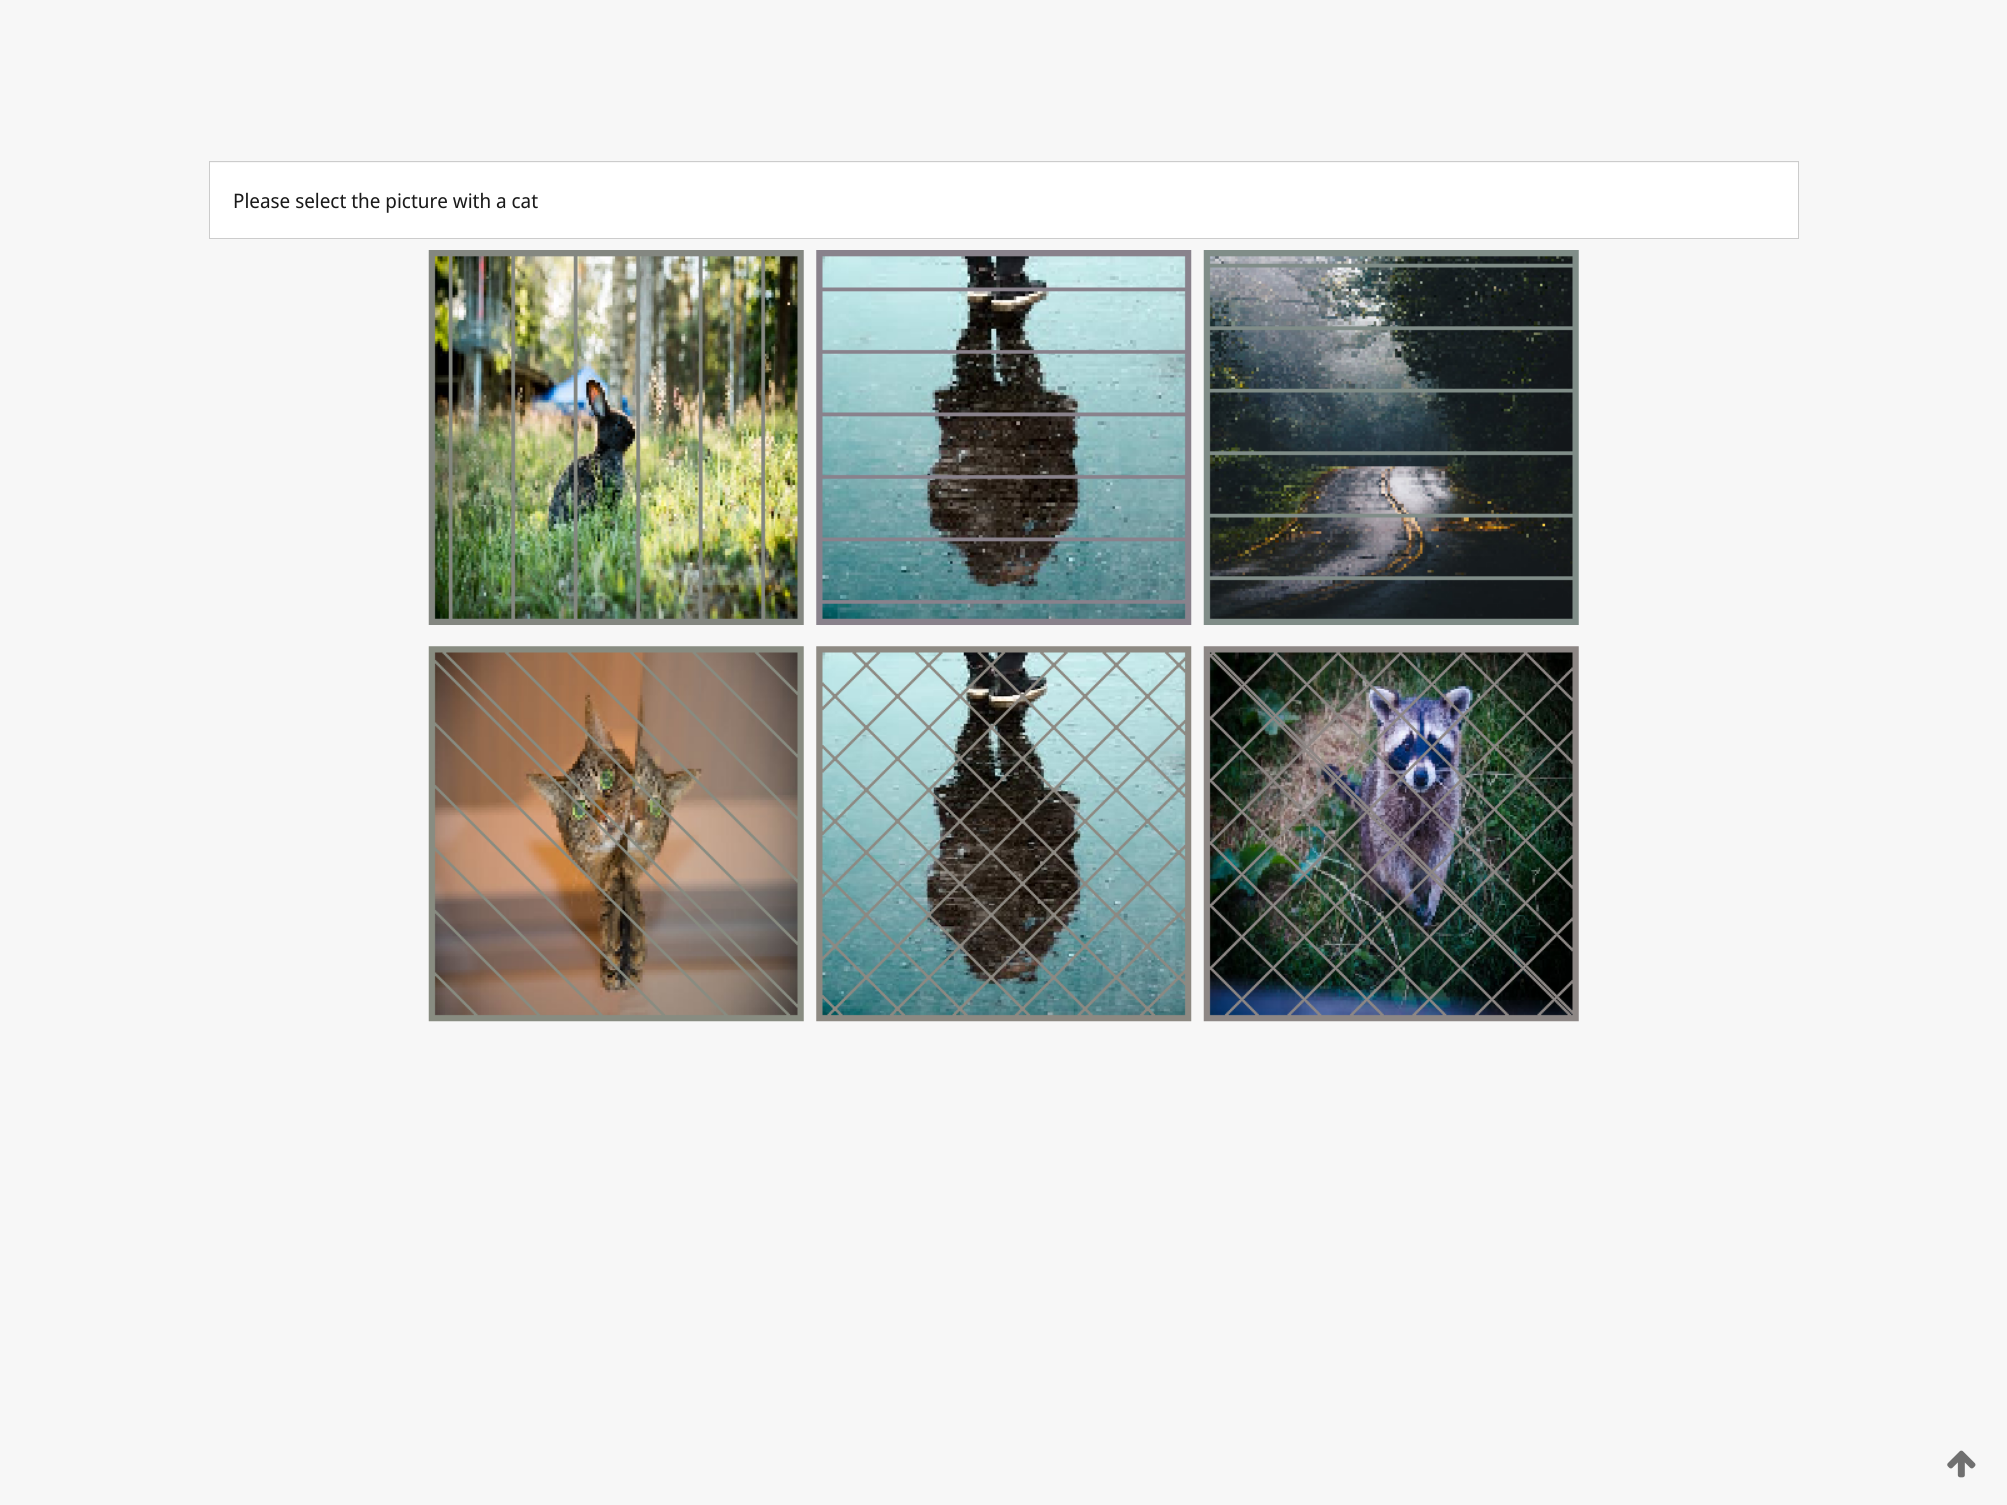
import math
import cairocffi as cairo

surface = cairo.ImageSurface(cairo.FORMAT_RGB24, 2007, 1505)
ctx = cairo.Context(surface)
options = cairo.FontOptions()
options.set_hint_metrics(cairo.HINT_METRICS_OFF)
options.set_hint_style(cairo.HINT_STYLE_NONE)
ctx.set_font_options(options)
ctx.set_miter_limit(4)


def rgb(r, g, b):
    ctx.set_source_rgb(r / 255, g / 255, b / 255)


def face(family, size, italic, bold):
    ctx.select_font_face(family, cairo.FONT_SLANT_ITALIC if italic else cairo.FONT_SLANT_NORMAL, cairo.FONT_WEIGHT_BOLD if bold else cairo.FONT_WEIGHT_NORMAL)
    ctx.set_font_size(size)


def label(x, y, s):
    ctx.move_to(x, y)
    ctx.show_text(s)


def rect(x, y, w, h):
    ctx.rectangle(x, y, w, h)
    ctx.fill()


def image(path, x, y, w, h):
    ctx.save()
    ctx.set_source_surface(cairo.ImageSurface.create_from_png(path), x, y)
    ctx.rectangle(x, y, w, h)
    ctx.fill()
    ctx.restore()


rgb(247, 247, 247)
ctx.paint()
rgb(255, 255, 255)
rect(210, 163, 1588, 75)
ctx.rectangle(209.5, 161.5, 1589, 77)
rgb(204, 204, 204)
ctx.set_line_width(1)
ctx.stroke()
face('Noto Sans Display', 20, 0, 0)
rgb(26, 26, 26)
label(233, 208, 'Please select the picture with a cat')
image('image0.png', 428, 250, 376, 375)
image('image1.png', 816, 250, 376, 375)
image('image2.png', 1203, 250, 376, 375)
image('image3.png', 428, 646, 376, 376)
image('image4.png', 816, 646, 376, 376)
image('image5.png', 1203, 646, 376, 376)
image('image6.png', 1947, 1450, 29, 28)
surface.write_to_png('render.png')
